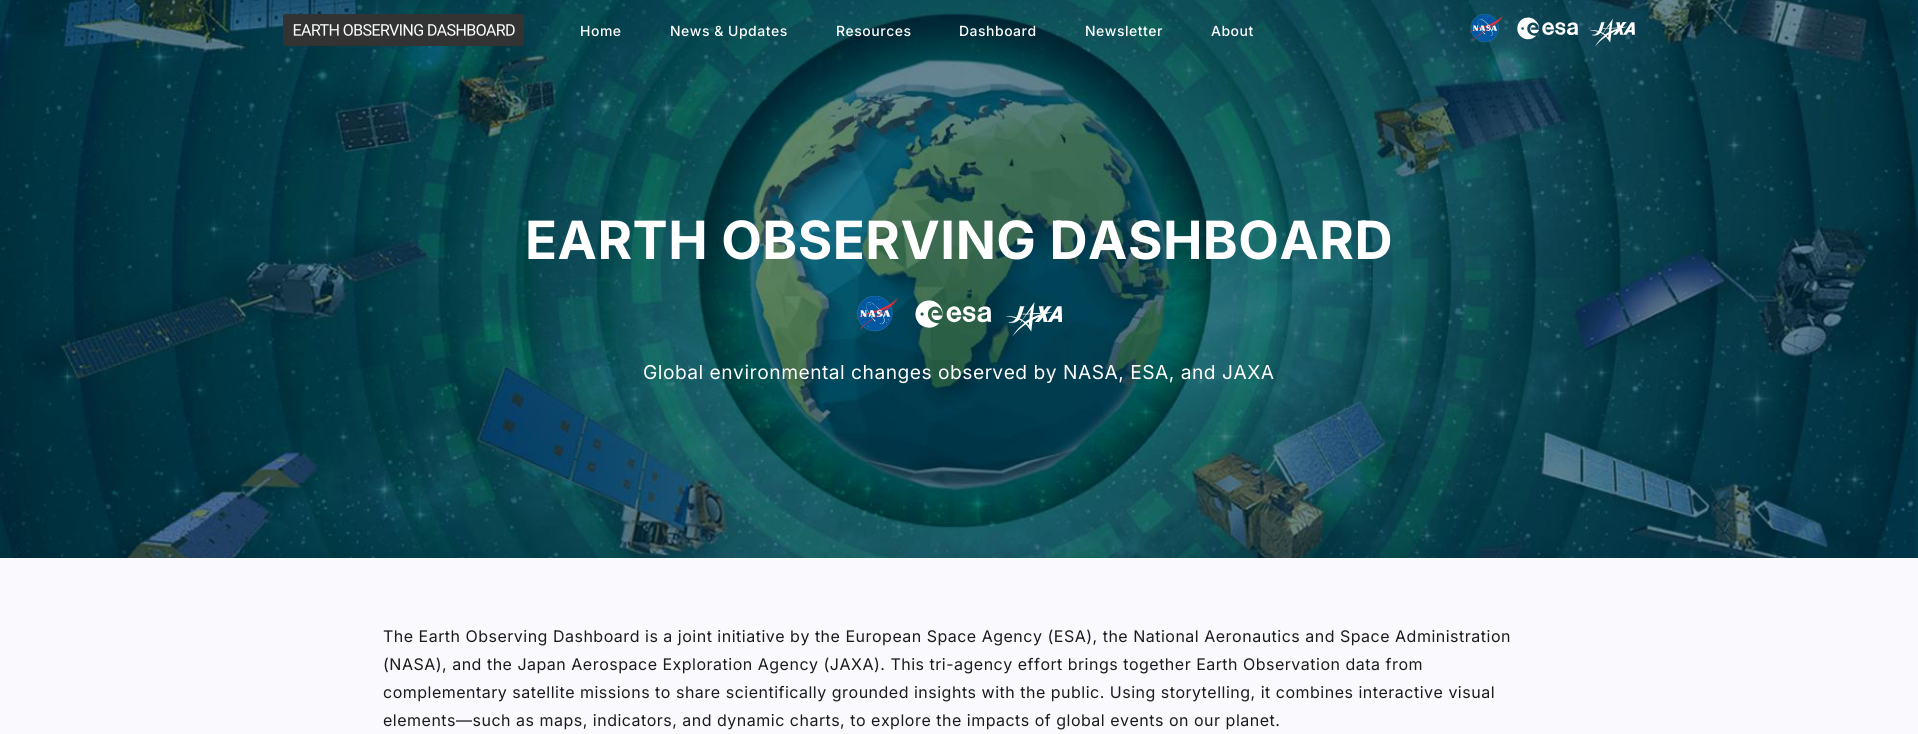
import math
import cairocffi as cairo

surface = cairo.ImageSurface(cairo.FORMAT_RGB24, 1918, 734)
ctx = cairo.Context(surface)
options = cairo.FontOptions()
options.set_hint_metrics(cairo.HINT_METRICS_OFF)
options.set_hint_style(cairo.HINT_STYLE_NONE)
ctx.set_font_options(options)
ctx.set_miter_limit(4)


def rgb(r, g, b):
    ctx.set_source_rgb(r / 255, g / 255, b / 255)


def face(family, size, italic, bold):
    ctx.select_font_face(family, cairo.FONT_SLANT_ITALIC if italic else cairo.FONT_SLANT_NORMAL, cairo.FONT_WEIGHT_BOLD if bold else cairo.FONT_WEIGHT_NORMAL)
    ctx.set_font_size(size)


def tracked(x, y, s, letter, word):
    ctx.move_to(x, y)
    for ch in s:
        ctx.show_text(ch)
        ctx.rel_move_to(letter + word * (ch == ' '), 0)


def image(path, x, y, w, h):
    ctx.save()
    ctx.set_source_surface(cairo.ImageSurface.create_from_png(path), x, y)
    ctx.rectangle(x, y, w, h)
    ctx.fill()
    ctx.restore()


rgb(249, 249, 254)
ctx.paint()
image('image2.png', 0, 0, 1918, 558)
image('image0.png', 283, 14, 241, 32)
face('Inter Medium', 14, 0, 0)
rgb(255, 255, 255)
tracked(580, 36, 'Home', 0.5, 0)
tracked(670, 36, 'News & Updates', 0.5, 0)
tracked(836, 36, 'Resources', 0.5, 0)
tracked(959, 36, 'Dashboard', 0.5, 0)
tracked(1085, 36, 'Newsletter', 0.5, 0)
tracked(1211, 36, 'About', 0.5, 0)
image('image1.png', 1469, 14, 166, 32)
face('Inter', 52.75, 0, 1)
tracked(525, 259, 'EARTH OBSERVING DASHBOARD', 0.5, 0)
image('image3.png', 855, 296, 207, 40)
face('Inter', 19.2, 0, 0)
tracked(643, 379, 'Global environmental changes observed by NASA, ESA, and JAXA', 0.5, 0)
face('Inter', 16, 0, 0)
rgb(26, 28, 31)
tracked(383, 642, 'The Earth Observing Dashboard is a joint initiative by the European Space Agency (ESA), the National Aeronautics and Space Administration', 0.5, 0)
tracked(383, 670, '(NASA), and the Japan Aerospace Exploration Agency (JAXA). This tri-agency effort brings together Earth Observation data from', 0.5, 0)
tracked(383, 698, 'complementary satellite missions to share scientifically grounded insights with the public. Using storytelling, it combines interactive visual', 0.5, 0)
tracked(383, 726, 'elements—such as maps, indicators, and dynamic charts, to explore the impacts of global events on our planet.', 0.5, 0)
surface.write_to_png('render.png')
